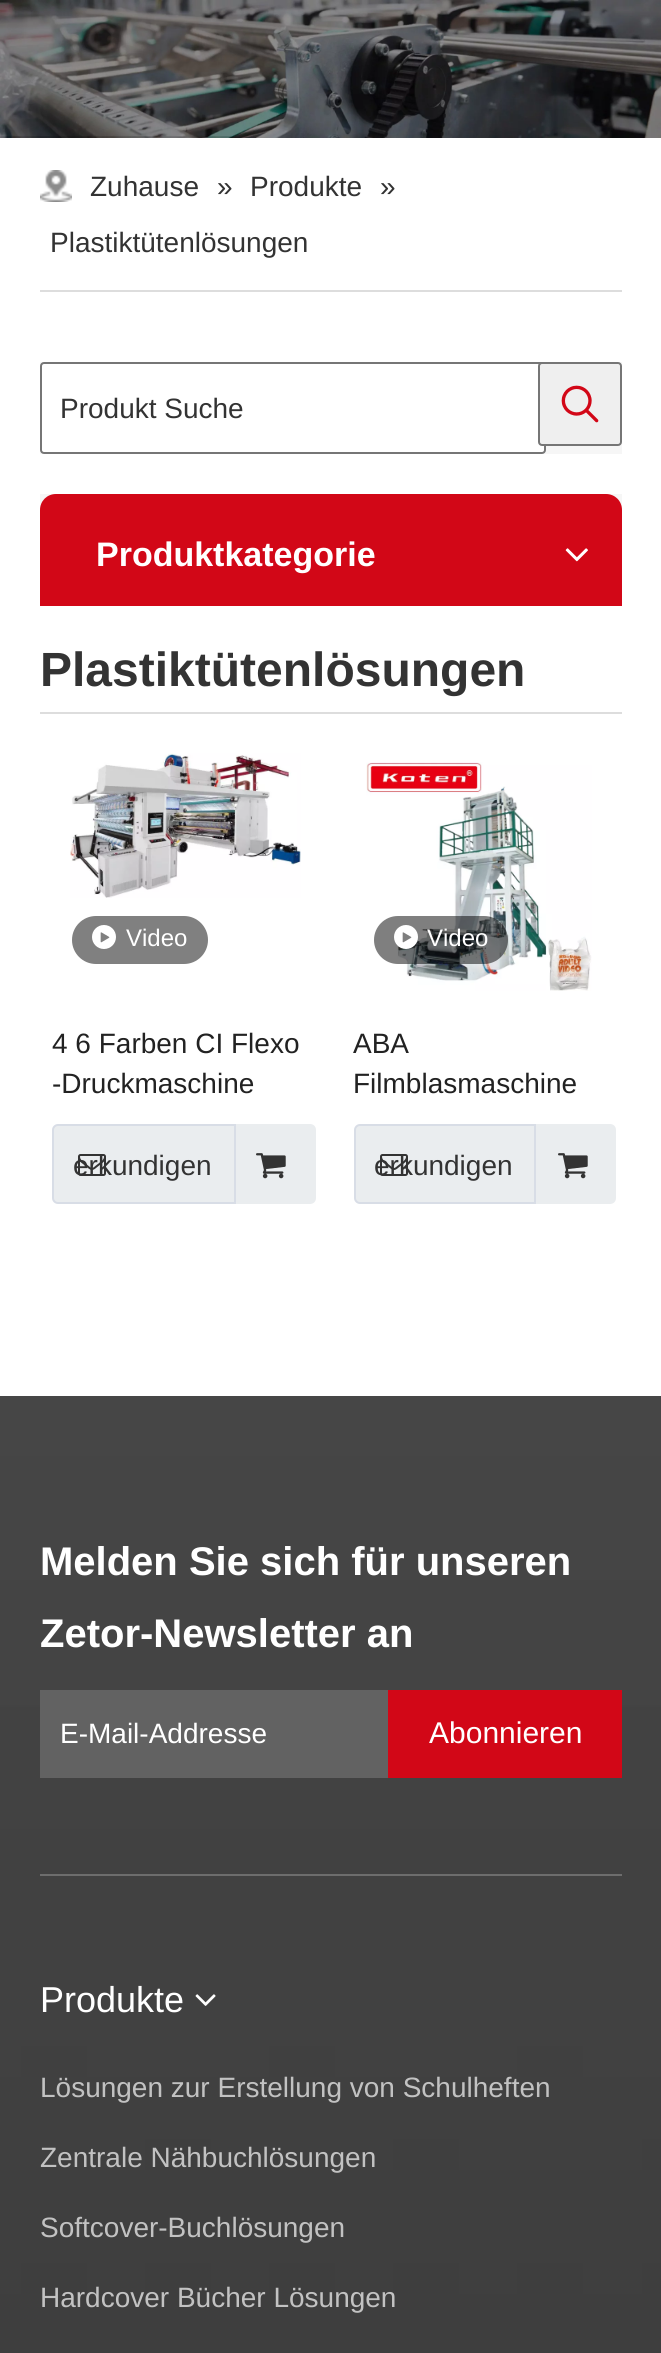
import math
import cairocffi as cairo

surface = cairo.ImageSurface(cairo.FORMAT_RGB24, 661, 2353)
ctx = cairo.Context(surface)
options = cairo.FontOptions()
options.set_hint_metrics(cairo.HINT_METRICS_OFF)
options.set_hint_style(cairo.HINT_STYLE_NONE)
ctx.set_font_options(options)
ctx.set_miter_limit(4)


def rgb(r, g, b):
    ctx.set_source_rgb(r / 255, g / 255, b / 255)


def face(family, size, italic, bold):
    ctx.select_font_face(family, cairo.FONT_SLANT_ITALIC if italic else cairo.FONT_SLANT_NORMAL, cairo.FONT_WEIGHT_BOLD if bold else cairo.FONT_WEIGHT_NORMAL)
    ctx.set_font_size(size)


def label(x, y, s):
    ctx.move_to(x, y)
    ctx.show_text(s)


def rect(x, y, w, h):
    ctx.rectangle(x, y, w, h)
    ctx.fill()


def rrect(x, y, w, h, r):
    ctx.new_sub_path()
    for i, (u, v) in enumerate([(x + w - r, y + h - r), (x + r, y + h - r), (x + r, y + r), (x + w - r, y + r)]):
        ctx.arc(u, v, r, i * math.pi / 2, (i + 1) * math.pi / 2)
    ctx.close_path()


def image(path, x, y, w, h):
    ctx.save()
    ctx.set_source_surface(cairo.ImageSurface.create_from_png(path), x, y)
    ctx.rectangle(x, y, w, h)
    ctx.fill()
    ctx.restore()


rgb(255, 255, 255)
ctx.paint()
image('image0.png', 0, 0, 661, 138)
rgb(221, 221, 221)
rect(40, 290, 582, 2)
image('image1.png', 40, 170, 32, 32)
face('Liberation Sans', 28, 0, 0)
rgb(51, 51, 51)
label(90, 196, 'Zuhause')
label(217, 196, '»')
label(250, 196, 'Produkte')
label(380, 196, '»')
label(50, 252, 'Plastiktütenlösungen')
rgb(246, 246, 246)
rect(40, 362, 582, 92)
rgb(255, 255, 255)
rrect(41, 363, 504, 90, 3)
ctx.fill_preserve()
rgb(118, 118, 118)
ctx.stroke()
rgb(51, 51, 51)
label(60, 418, 'Produkt Suche')
rgb(239, 239, 239)
rrect(539, 363, 82, 82, 3)
ctx.fill_preserve()
rgb(118, 118, 118)
ctx.stroke()
image('image2.png', 561, 385, 38, 38)
rgb(246, 246, 246)
rect(40, 494, 582, 16)
rgb(210, 7, 23)
ctx.new_path()
ctx.move_to(56, 494)
ctx.line_to(606, 494)
ctx.curve_to(615, 494, 622, 501, 622, 510)
ctx.line_to(622, 606)
ctx.line_to(40, 606)
ctx.line_to(40, 510)
ctx.curve_to(40, 501, 47, 494, 56, 494)
ctx.close_path()
ctx.fill()
face('Liberation Sans', 34, 0, 1)
rgb(255, 255, 255)
label(96, 566, 'Produktkategorie')
image('image3.png', 565, 548, 23, 14)
rgb(221, 221, 221)
rect(40, 712, 582, 2)
face('Liberation Sans', 48, 0, 1)
rgb(51, 51, 51)
label(40, 686, 'Plastiktütenlösungen')
image('image4.png', 70, 753, 231, 145)
rgb(128, 128, 128)
rrect(72, 916, 136, 48, 24)
ctx.fill()
image('image5.png', 92, 925, 24, 24)
face('Liberation Sans', 24, 0, 0)
rgb(255, 255, 255)
label(126, 946, 'Video')
face('Liberation Sans', 28, 0, 0)
rgb(34, 34, 34)
label(52, 1053, '4 6 Farben CI Flexo')
label(52, 1093, '-Druckmaschine')
rgb(234, 237, 239)
rrect(53, 1125, 260, 78, 5)
ctx.fill_preserve()
rgb(216, 221, 230)
ctx.stroke()
rgb(51, 51, 51)
label(73, 1175, 'erkundigen')
image('image6.png', 78, 1154, 28, 22)
rgb(234, 237, 239)
ctx.new_path()
ctx.move_to(234, 1124)
ctx.line_to(310, 1124)
ctx.curve_to(313.5, 1124, 316, 1126.5, 316, 1130)
ctx.line_to(316, 1198)
ctx.curve_to(316, 1201.5, 313.5, 1204, 310, 1204)
ctx.line_to(234, 1204)
ctx.close_path()
ctx.fill()
rgb(216, 221, 230)
rect(234, 1124, 2, 80)
image('image7.png', 256, 1153, 30, 26)
image('image8.png', 366, 762, 226, 229)
ctx.set_source_rgba(0, 0, 0, 0.5)
rrect(374, 916, 134, 48, 24)
ctx.fill()
image('image9.png', 394, 925, 24, 24)
face('Liberation Sans', 24, 0, 0)
rgb(255, 255, 255)
label(427, 946, 'Video')
face('Liberation Sans', 28, 0, 0)
rgb(34, 34, 34)
label(353, 1053, 'ABA')
label(353, 1093, 'Filmblasmaschine')
rgb(234, 237, 239)
rrect(355, 1125, 258, 78, 5)
ctx.fill_preserve()
rgb(216, 221, 230)
ctx.stroke()
rgb(51, 51, 51)
label(374, 1175, 'erkundigen')
image('image10.png', 380, 1154, 28, 22)
rgb(234, 237, 239)
ctx.new_path()
ctx.move_to(534, 1124)
ctx.line_to(610, 1124)
ctx.curve_to(613.5, 1124, 616, 1126.5, 616, 1130)
ctx.line_to(616, 1198)
ctx.curve_to(616, 1201.5, 613.5, 1204, 610, 1204)
ctx.line_to(534, 1204)
ctx.close_path()
ctx.fill()
rgb(216, 221, 230)
rect(534, 1124, 2, 80)
image('image7.png', 558, 1153, 30, 26)
image('image11.png', 0, 1396, 661, 957)
face('Liberation Sans', 40, 0, 1)
rgb(255, 255, 255)
label(40, 1575, 'Melden Sie sich für unseren')
label(40, 1647, 'Zetor-Newsletter an')
rgb(98, 98, 98)
rect(40, 1690, 348, 88)
face('Liberation Sans', 28, 0, 0)
rgb(255, 255, 255)
label(60, 1743, 'E-Mail-Addresse')
rgb(210, 7, 23)
rect(388, 1690, 234, 88)
face('Liberation Sans', 30, 0, 0)
rgb(255, 255, 255)
label(429, 1743, 'Abonnieren')
rgb(109, 109, 109)
rect(40, 1874, 582, 2)
face('Liberation Sans', 36, 0, 0)
rgb(255, 255, 255)
label(40, 2012, 'Produkte')
image('image12.png', 195, 1994, 21, 12)
face('Liberation Sans', 28, 0, 0)
rgb(194, 194, 194)
label(40, 2097, 'Lösungen zur Erstellung von Schulheften')
label(40, 2167, 'Zentrale Nähbuchlösungen')
label(40, 2237, 'Softcover-Buchlösungen')
label(40, 2307, 'Hardcover Bücher Lösungen')
surface.write_to_png('render.png')
